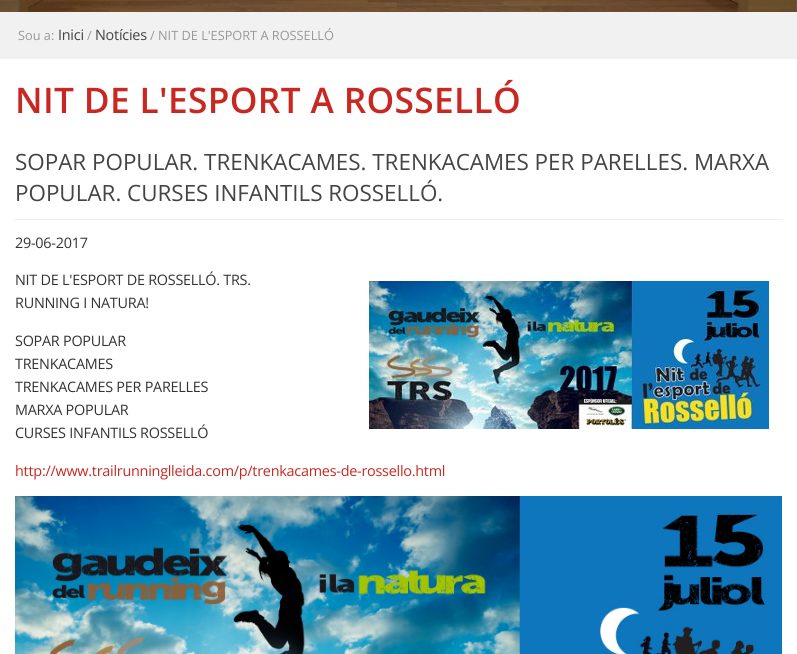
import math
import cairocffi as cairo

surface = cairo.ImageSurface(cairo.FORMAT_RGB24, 797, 654)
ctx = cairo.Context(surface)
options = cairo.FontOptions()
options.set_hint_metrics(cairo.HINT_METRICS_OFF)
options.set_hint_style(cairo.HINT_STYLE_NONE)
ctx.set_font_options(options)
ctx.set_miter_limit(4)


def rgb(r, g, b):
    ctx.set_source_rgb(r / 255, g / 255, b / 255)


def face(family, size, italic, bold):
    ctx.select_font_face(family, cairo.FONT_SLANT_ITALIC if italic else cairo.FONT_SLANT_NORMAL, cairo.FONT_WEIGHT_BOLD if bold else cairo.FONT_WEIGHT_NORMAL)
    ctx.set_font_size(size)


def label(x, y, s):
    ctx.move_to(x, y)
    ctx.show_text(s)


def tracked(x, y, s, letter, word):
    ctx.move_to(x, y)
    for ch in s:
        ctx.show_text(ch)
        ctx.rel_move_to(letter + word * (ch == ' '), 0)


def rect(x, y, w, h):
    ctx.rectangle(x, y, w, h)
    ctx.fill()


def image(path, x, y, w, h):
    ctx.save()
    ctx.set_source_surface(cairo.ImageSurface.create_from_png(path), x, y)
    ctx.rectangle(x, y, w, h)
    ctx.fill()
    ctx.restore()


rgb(255, 255, 255)
ctx.paint()
image('image0.png', 0, 0, 797, 12)
rgb(241, 241, 241)
rect(0, 12, 797, 47)
face('Open Sans', 12.75, 0, 0)
rgb(152, 152, 152)
label(18, 40, 'Sou a:')
face('Open Sans', 14.4, 0, 0)
rgb(68, 68, 68)
tracked(58, 40, 'Inici', -0.25, 0)
face('Open Sans', 12.75, 0, 0)
rgb(152, 152, 152)
label(87, 40, '/')
face('Open Sans', 14.4, 0, 0)
rgb(68, 68, 68)
tracked(95, 40, 'Notícies', -0.25, 0)
face('Open Sans', 12.75, 0, 0)
rgb(152, 152, 152)
label(150, 40, '/ NIT DE L\'ESPORT A ROSSELLÓ')
face('Open Sans SemiBold', 35.25, 0, 0)
rgb(199, 40, 34)
tracked(15, 113, 'NIT DE L\'ESPORT A ROSSELLÓ', 0.35, 0)
rgb(238, 238, 238)
rect(15, 219, 767, 1)
face('Open Sans', 22.4, 0, 0)
rgb(68, 68, 68)
label(15, 170, 'SOPAR POPULAR. TRENKACAMES. TRENKACAMES PER PARELLES. MARXA')
label(15, 201, 'POPULAR. CURSES INFANTILS ROSSELLÓ.')
face('Open Sans', 14.4, 0, 0)
rgb(51, 51, 51)
tracked(15, 248, '29-06-2017', -0.25, 0)
tracked(15, 285, 'NIT DE L\'ESPORT DE ROSSELLÓ. TRS.', -0.25, 0)
tracked(15, 308, 'RUNNING I NATURA!', -0.25, 0)
tracked(15, 346, 'SOPAR POPULAR', -0.25, 0)
tracked(15, 369, 'TRENKACAMES', -0.25, 0)
tracked(15, 392, 'TRENKACAMES PER PARELLES', -0.25, 0)
tracked(15, 415, 'MARXA POPULAR', -0.25, 0)
tracked(15, 438, 'CURSES INFANTILS ROSSELLÓ', -0.25, 0)
rgb(199, 40, 34)
tracked(15, 476, 'http://www.trailrunninglleida.com/p/trenkacames-de-rossello.html', -0.25, 0)
image('image1.png', 15, 496, 767, 158)
image('image2.png', 369, 281, 400, 148)
surface.write_to_png('render.png')
